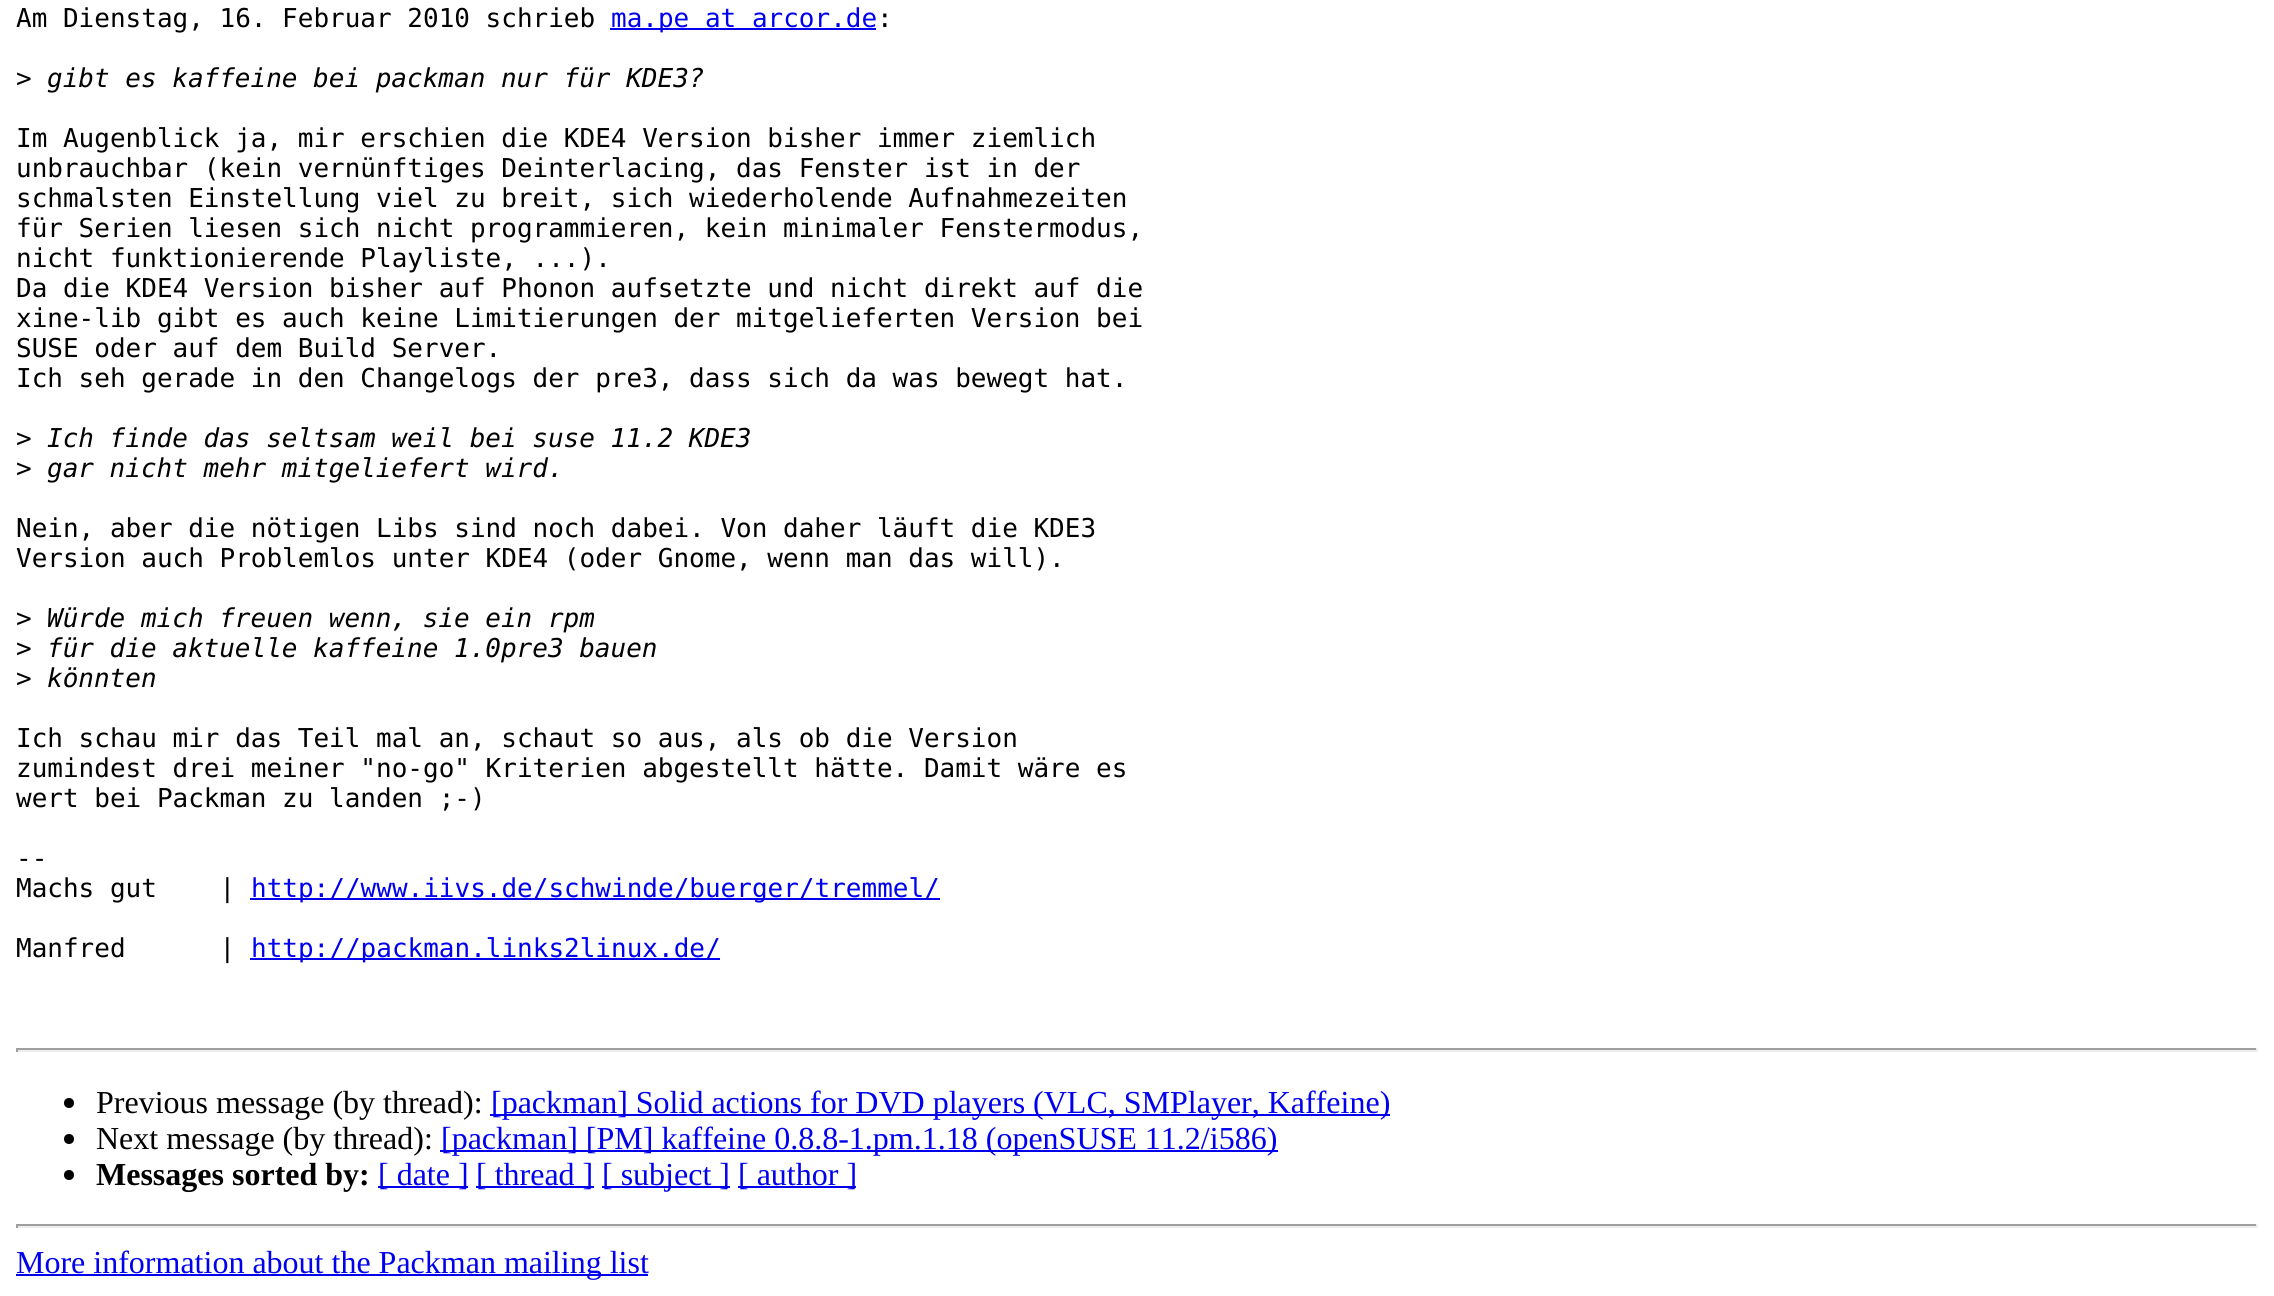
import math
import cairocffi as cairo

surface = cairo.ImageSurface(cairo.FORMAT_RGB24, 2274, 1296)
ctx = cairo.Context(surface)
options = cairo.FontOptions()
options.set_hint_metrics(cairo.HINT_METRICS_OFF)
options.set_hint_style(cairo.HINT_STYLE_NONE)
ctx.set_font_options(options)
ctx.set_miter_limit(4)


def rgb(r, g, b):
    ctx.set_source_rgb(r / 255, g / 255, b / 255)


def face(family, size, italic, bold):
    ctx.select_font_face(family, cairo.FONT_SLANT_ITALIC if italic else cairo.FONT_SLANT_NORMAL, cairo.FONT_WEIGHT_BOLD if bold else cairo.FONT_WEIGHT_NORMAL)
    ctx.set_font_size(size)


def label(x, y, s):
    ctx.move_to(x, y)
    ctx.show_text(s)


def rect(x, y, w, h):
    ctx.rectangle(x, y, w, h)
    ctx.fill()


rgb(255, 255, 255)
ctx.paint()
face('DejaVu Sans Mono', 26, 0, 0)
rgb(0, 0, 0)
label(16, 27, 'Am Dienstag, 16. Februar 2010 schrieb')
rgb(0, 0, 238)
rect(610, 28, 266, 2)
label(611, 27, 'ma.pe at arcor.de')
rgb(0, 0, 0)
label(877, 27, ':')
label(16, 87, '>')
face('DejaVu Sans Mono', 26, 1, 0)
label(47, 87, 'gibt es kaffeine bei packman nur für KDE3?')
face('DejaVu Sans Mono', 26, 0, 0)
label(16, 147, 'Im Augenblick ja, mir erschien die KDE4 Version bisher immer ziemlich')
label(16, 177, 'unbrauchbar (kein vernünftiges Deinterlacing, das Fenster ist in der')
label(16, 207, 'schmalsten Einstellung viel zu breit, sich wiederholende Aufnahmezeiten')
label(16, 237, 'für Serien liesen sich nicht programmieren, kein minimaler Fenstermodus,')
label(16, 267, 'nicht funktionierende Playliste, ...).')
label(16, 297, 'Da die KDE4 Version bisher auf Phonon aufsetzte und nicht direkt auf die')
label(16, 327, 'xine-lib gibt es auch keine Limitierungen der mitgelieferten Version bei')
label(16, 357, 'SUSE oder auf dem Build Server.')
label(16, 387, 'Ich seh gerade in den Changelogs der pre3, dass sich da was bewegt hat.')
label(16, 447, '>')
face('DejaVu Sans Mono', 26, 1, 0)
label(47, 447, 'Ich finde das seltsam weil bei suse 11.2 KDE3')
face('DejaVu Sans Mono', 26, 0, 0)
label(16, 477, '>')
face('DejaVu Sans Mono', 26, 1, 0)
label(47, 477, 'gar nicht mehr mitgeliefert wird.')
face('DejaVu Sans Mono', 26, 0, 0)
label(16, 537, 'Nein, aber die nötigen Libs sind noch dabei. Von daher läuft die KDE3')
label(16, 567, 'Version auch Problemlos unter KDE4 (oder Gnome, wenn man das will).')
label(16, 627, '>')
face('DejaVu Sans Mono', 26, 1, 0)
label(47, 627, 'Würde mich freuen wenn, sie ein rpm')
face('DejaVu Sans Mono', 26, 0, 0)
label(16, 657, '>')
face('DejaVu Sans Mono', 26, 1, 0)
label(47, 657, 'für die aktuelle kaffeine 1.0pre3 bauen')
face('DejaVu Sans Mono', 26, 0, 0)
label(16, 687, '>')
face('DejaVu Sans Mono', 26, 1, 0)
label(47, 687, 'könnten')
face('DejaVu Sans Mono', 26, 0, 0)
label(16, 747, 'Ich schau mir das Teil mal an, schaut so aus, als ob die Version')
label(16, 777, 'zumindest drei meiner "no-go" Kriterien abgestellt hätte. Damit wäre es')
label(16, 807, 'wert bei Packman zu landen ;-)')
label(16, 867, '--')
label(16, 897, 'Machs gut    |')
rgb(0, 0, 238)
rect(250, 898, 690, 2)
label(251, 897, 'http://www.iivs.de/schwinde/buerger/tremmel/')
rgb(0, 0, 0)
label(16, 957, 'Manfred      |')
rgb(0, 0, 238)
rect(250, 958, 470, 2)
label(251, 957, 'http://packman.links2linux.de/')
rgb(159, 159, 159)
rect(16, 1048, 2242, 2)
rgb(238, 238, 238)
rect(2256, 1048, 2, 4)
rect(16, 1050, 2242, 2)
rgb(159, 159, 159)
rect(16, 1048, 2, 4)
rgb(0, 0, 0)
ctx.new_path()
ctx.arc(69, 1103, 5, 0, 2 * math.pi)
ctx.fill()
face('Liberation Serif', 32, 0, 0)
label(96, 1113, 'Previous message (by thread):')
rgb(0, 0, 238)
rect(490, 1114, 900, 2)
label(491, 1113, '[packman] Solid actions for DVD players (VLC, SMPlayer, Kaffeine)')
rgb(0, 0, 0)
ctx.new_path()
ctx.arc(69, 1139, 5, 0, 2 * math.pi)
ctx.fill()
label(96, 1149, 'Next message (by thread):')
rgb(0, 0, 238)
rect(440, 1150, 838, 2)
label(441, 1149, '[packman] [PM] kaffeine 0.8.8-1.pm.1.18 (openSUSE 11.2/i586)')
rgb(0, 0, 0)
ctx.new_path()
ctx.arc(69, 1175, 5, 0, 2 * math.pi)
ctx.fill()
face('Liberation Serif', 32, 0, 1)
label(96, 1185, 'Messages sorted by:')
rgb(0, 0, 238)
rect(378, 1186, 90, 2)
face('Liberation Serif', 32, 0, 0)
label(378, 1185, '[ date ]')
rect(476, 1186, 118, 2)
label(476, 1185, '[ thread ]')
rect(602, 1186, 128, 2)
label(602, 1185, '[ subject ]')
rect(738, 1186, 118, 2)
label(738, 1185, '[ author ]')
rgb(159, 159, 159)
rect(16, 1224, 2242, 2)
rgb(238, 238, 238)
rect(2256, 1224, 2, 4)
rect(16, 1226, 2242, 2)
rgb(159, 159, 159)
rect(16, 1224, 2, 4)
rgb(0, 0, 238)
rect(16, 1274, 632, 2)
label(16, 1273, 'More information about the Packman mailing list')
surface.write_to_png('render.png')
